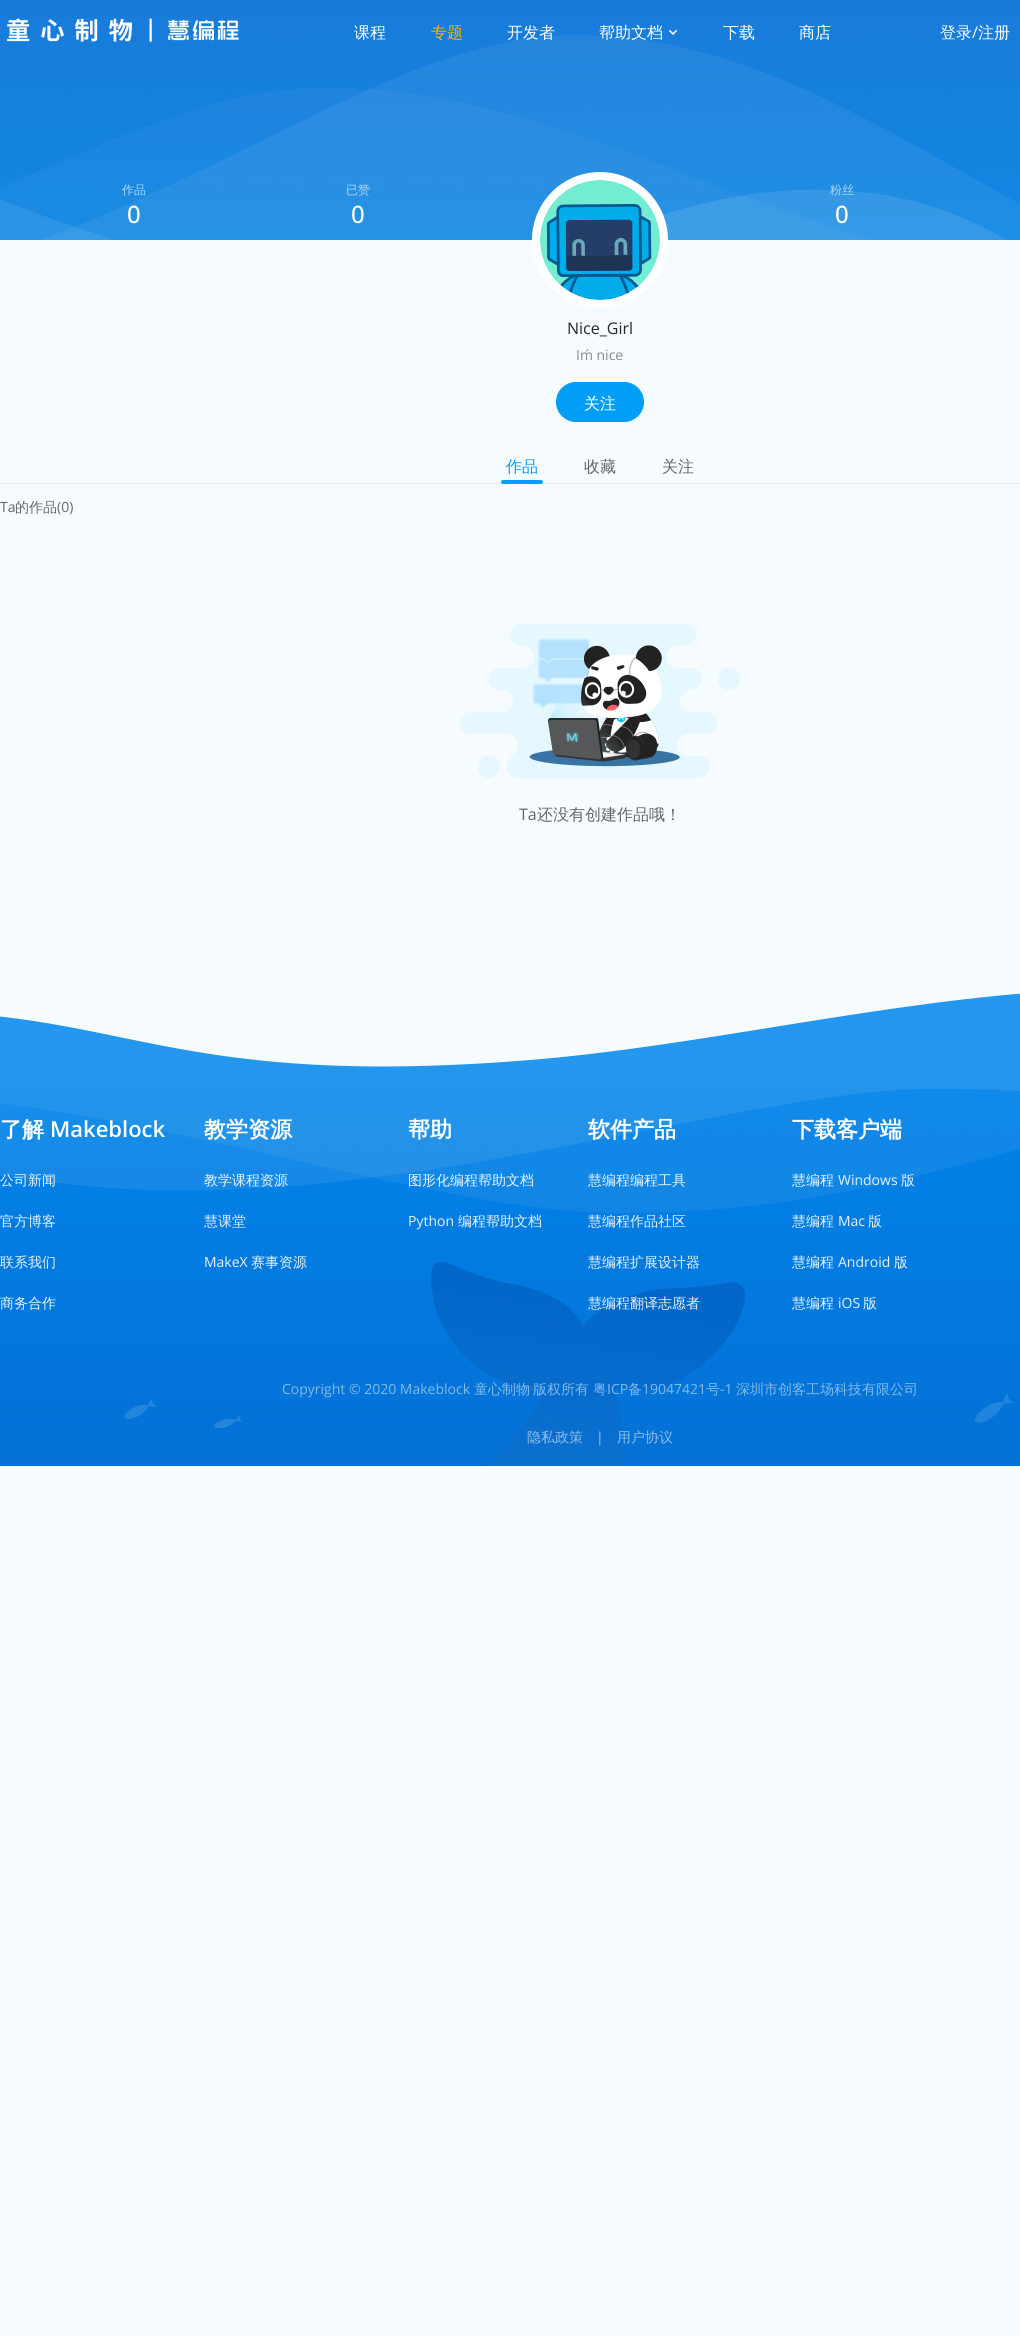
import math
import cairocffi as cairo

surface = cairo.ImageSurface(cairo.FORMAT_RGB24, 1020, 2336)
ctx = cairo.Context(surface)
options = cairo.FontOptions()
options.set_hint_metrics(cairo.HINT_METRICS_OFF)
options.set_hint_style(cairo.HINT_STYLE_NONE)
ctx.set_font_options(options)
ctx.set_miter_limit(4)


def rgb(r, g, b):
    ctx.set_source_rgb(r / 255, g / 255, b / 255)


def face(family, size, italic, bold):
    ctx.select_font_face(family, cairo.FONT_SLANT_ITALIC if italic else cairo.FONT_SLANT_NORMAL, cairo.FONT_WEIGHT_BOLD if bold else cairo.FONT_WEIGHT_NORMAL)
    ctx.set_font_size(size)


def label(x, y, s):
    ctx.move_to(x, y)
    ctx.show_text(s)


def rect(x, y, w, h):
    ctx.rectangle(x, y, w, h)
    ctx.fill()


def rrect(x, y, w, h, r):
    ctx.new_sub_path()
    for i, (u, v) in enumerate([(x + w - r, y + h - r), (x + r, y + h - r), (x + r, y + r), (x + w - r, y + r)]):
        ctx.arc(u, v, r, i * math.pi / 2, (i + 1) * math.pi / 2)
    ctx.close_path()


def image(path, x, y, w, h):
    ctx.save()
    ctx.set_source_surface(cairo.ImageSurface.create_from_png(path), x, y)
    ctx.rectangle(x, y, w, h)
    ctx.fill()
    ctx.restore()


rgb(245, 251, 255)
ctx.paint()
image('image0.png', 0, 0, 1020, 240)
image('image1.png', 7, 18, 232, 24)
face('WenQuanYi Zen Hei Medium', 16, 0, 0)
rgb(255, 255, 255)
label(354, 38, '课程')
rgb(255, 178, 0)
label(431, 38, '专题')
rgb(255, 255, 255)
label(507, 38, '开发者')
label(599, 38, '帮助文档')
image('image2.png', 669, 30, 8, 5)
label(723, 38, '下载')
label(799, 38, '商店')
label(940, 38, '登录')
face('Open Sans', 16, 0, 0)
label(972, 38, '/')
face('WenQuanYi Zen Hei Medium', 16, 0, 0)
label(978, 38, '注册')
face('WenQuanYi Zen Hei Medium', 12, 0, 0)
rgb(175, 214, 245)
label(122, 194, '作品')
face('Open Sans Medium', 24, 0, 0)
rgb(255, 255, 255)
label(127, 223, '0')
face('WenQuanYi Zen Hei Medium', 12, 0, 0)
rgb(175, 214, 245)
label(346, 194, '已赞')
face('Open Sans Medium', 24, 0, 0)
rgb(255, 255, 255)
label(351, 223, '0')
ctx.new_path()
ctx.arc(600, 240, 68, 0, 2 * math.pi)
ctx.fill()
image('image3.png', 540, 180, 120, 120)
face('WenQuanYi Zen Hei Medium', 12, 0, 0)
rgb(175, 214, 245)
label(830, 194, '粉丝')
face('Open Sans Medium', 24, 0, 0)
rgb(255, 255, 255)
label(835, 223, '0')
face('Open Sans', 16, 0, 0)
rgb(37, 38, 38)
label(567, 334, 'Nice_Girl')
face('Open Sans', 14, 0, 0)
rgb(135, 138, 140)
label(576, 360, 'Iḿ nice')
rgb(0, 158, 246)
rrect(556.5, 382.5, 87, 39, 19.5)
ctx.fill_preserve()
ctx.set_line_width(1)
ctx.stroke()
face('WenQuanYi Zen Hei Medium', 16, 0, 0)
rgb(255, 255, 255)
label(584, 409, '关注')
rgb(229, 237, 242)
rect(0, 483, 1020, 1)
rgb(0, 158, 246)
label(506, 472, '作品')
ctx.new_path()
ctx.move_to(503, 480)
ctx.line_to(522, 480)
ctx.line_to(522, 484)
ctx.line_to(503, 484)
ctx.curve_to(502, 484, 501, 483, 501, 482)
ctx.curve_to(501, 481, 502, 480, 503, 480)
ctx.close_path()
ctx.fill()
ctx.new_path()
ctx.move_to(522, 480)
ctx.line_to(541, 480)
ctx.curve_to(542, 480, 543, 481, 543, 482)
ctx.curve_to(543, 483, 542, 484, 541, 484)
ctx.line_to(522, 484)
ctx.close_path()
ctx.fill()
rgb(102, 102, 102)
label(584, 472, '收藏')
label(662, 472, '关注')
face('Open Sans', 14, 0, 0)
label(0, 512, 'Ta')
face('WenQuanYi Zen Hei Medium', 14, 0, 0)
label(15, 512, '的作品')
face('Open Sans', 14, 0, 0)
label(57, 512, '(0)')
image('image4.png', 460, 624, 280, 154)
face('Open Sans', 16, 0, 0)
label(519, 820, 'Ta')
face('WenQuanYi Zen Hei Medium', 16, 0, 0)
label(537, 820, '还没有创建作品哦！')
image('image5.png', 0, 993, 1020, 473)
face('WenQuanYi Zen Hei', 22, 0, 1)
rgb(255, 255, 255)
label(0, 1137, '了解')
face('Open Sans SemiBold', 22, 0, 0)
label(50, 1137, 'Makeblock')
face('WenQuanYi Zen Hei Medium', 14, 0, 0)
rgb(231, 243, 252)
label(0, 1185, '公司新闻')
label(0, 1226, '官方博客')
label(0, 1267, '联系我们')
label(0, 1308, '商务合作')
face('WenQuanYi Zen Hei', 22, 0, 1)
rgb(255, 255, 255)
label(204, 1137, '教学资源')
face('WenQuanYi Zen Hei Medium', 14, 0, 0)
rgb(231, 243, 252)
label(204, 1185, '教学课程资源')
label(204, 1226, '慧课堂')
face('Open Sans', 14, 0, 0)
label(204, 1267, 'MakeX')
face('WenQuanYi Zen Hei Medium', 14, 0, 0)
label(251, 1267, '赛事资源')
face('WenQuanYi Zen Hei', 22, 0, 1)
rgb(255, 255, 255)
label(408, 1137, '帮助')
face('WenQuanYi Zen Hei Medium', 14, 0, 0)
rgb(231, 243, 252)
label(408, 1185, '图形化编程帮助文档')
face('Open Sans', 14, 0, 0)
label(408, 1226, 'Python')
face('WenQuanYi Zen Hei Medium', 14, 0, 0)
label(458, 1226, '编程帮助文档')
face('WenQuanYi Zen Hei', 22, 0, 1)
rgb(255, 255, 255)
label(588, 1137, '软件产品')
face('WenQuanYi Zen Hei Medium', 14, 0, 0)
rgb(231, 243, 252)
label(588, 1185, '慧编程编程工具')
label(588, 1226, '慧编程作品社区')
label(588, 1267, '慧编程扩展设计器')
label(588, 1308, '慧编程翻译志愿者')
face('WenQuanYi Zen Hei', 22, 0, 1)
rgb(255, 255, 255)
label(792, 1137, '下载客户端')
face('WenQuanYi Zen Hei Medium', 14, 0, 0)
rgb(231, 243, 252)
label(792, 1185, '慧编程')
face('Open Sans', 14, 0, 0)
label(838, 1185, 'Windows')
face('WenQuanYi Zen Hei Medium', 14, 0, 0)
label(901, 1185, '版')
label(792, 1226, '慧编程')
face('Open Sans', 14, 0, 0)
label(838, 1226, 'Mac')
face('WenQuanYi Zen Hei Medium', 14, 0, 0)
label(868, 1226, '版')
label(792, 1267, '慧编程')
face('Open Sans', 14, 0, 0)
label(838, 1267, 'Android')
face('WenQuanYi Zen Hei Medium', 14, 0, 0)
label(894, 1267, '版')
label(792, 1308, '慧编程')
face('Open Sans', 14, 0, 0)
label(838, 1308, 'iOS')
face('WenQuanYi Zen Hei Medium', 14, 0, 0)
label(863, 1308, '版')
face('Open Sans', 14, 0, 0)
rgb(129, 186, 236)
label(282, 1394, 'Copyright © 2020 Makeblock')
face('WenQuanYi Zen Hei Medium', 14, 0, 0)
label(474, 1394, '童心制物')
label(533, 1394, '版权所有')
rgb(130, 181, 230)
label(593, 1394, '粤')
face('Open Sans', 14, 0, 0)
rgb(129, 186, 236)
label(607, 1394, 'ICP')
face('WenQuanYi Zen Hei Medium', 14, 0, 0)
label(628, 1394, '备')
face('Open Sans', 14, 0, 0)
label(642, 1394, '19047421')
face('WenQuanYi Zen Hei Medium', 14, 0, 0)
label(706, 1394, '号')
face('Open Sans', 14, 0, 0)
label(720, 1394, '-1')
face('WenQuanYi Zen Hei Medium', 14, 0, 0)
label(736, 1394, '深圳市创客工场科技有限公司')
rgb(142, 189, 233)
label(527, 1442, '隐私政策')
face('Open Sans', 14, 0, 0)
rgb(156, 197, 236)
label(596, 1442, '|')
face('WenQuanYi Zen Hei Medium', 14, 0, 0)
rgb(142, 189, 233)
label(617, 1442, '用户协议')
surface.write_to_png('render.png')
